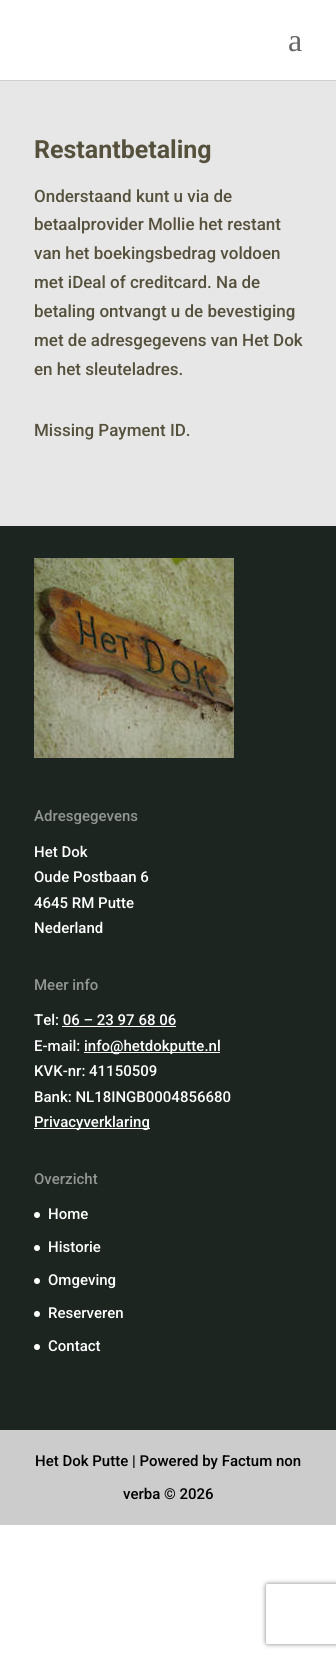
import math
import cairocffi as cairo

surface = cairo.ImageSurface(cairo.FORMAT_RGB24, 336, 1658)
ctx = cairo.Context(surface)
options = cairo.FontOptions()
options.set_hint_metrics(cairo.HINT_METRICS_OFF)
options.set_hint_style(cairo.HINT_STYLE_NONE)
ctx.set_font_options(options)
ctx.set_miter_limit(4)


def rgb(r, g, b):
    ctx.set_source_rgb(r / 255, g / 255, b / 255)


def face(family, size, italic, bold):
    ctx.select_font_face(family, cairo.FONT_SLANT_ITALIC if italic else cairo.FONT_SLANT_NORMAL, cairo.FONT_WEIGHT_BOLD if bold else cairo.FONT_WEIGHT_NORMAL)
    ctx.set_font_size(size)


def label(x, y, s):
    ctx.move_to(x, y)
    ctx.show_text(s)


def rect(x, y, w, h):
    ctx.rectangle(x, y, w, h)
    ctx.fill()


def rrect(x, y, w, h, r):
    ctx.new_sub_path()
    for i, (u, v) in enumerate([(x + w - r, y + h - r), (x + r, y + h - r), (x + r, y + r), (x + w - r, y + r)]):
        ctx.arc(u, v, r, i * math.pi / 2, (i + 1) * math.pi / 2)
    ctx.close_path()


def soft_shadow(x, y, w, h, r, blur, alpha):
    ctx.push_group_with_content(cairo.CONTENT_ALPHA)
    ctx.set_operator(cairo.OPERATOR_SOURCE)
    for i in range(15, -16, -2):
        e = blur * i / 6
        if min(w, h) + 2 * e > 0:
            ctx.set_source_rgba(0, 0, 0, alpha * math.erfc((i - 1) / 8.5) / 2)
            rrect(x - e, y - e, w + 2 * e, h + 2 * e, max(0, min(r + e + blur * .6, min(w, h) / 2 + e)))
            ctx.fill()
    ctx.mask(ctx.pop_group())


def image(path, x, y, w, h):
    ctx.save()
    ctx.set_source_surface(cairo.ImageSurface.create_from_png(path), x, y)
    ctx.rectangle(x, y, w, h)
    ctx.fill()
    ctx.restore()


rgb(255, 255, 255)
ctx.paint()
rgb(208, 208, 208)
rect(0, 80, 336, 1)
face('Liberation Serif', 32, 0, 0)
rgb(102, 102, 102)
label(288, 51, 'a')
rgb(231, 231, 231)
rect(0, 81, 336, 445)
face('Roboto', 25, 0, 1)
rgb(86, 81, 61)
label(34, 158, 'Restantbetaling')
face('Roboto Medium', 17, 0, 0)
label(34, 202, 'Onderstaand kunt u via de')
label(34, 230, 'betaalprovider Mollie het restant')
label(34, 259, 'van het boekingsbedrag voldoen')
label(34, 288, 'met iDeal of creditcard. Na de')
label(34, 317, 'betaling ontvangt u de bevestiging')
label(34, 346, 'met de adresgegevens van Het Dok')
label(34, 375, 'en het sleuteladres.')
label(34, 436, 'Missing Payment ID.')
rgb(28, 37, 32)
rect(0, 526, 336, 904)
image('image0.png', 34, 558, 200, 200)
face('Roboto Medium', 15, 0, 0)
rgb(146, 150, 148)
label(34, 821, 'Adresgegevens')
rgb(255, 255, 255)
label(34, 857, 'Het Dok')
label(34, 882, 'Oude Postbaan 6')
label(34, 908, '4645 RM Putte')
label(34, 933, 'Nederland')
rgb(146, 150, 148)
label(34, 990, 'Meer info')
rgb(255, 255, 255)
label(34, 1025, 'Tel: 06 – 23 97 68 06')
rect(62, 1026, 114, 1)
label(34, 1051, 'E-mail:')
rect(84, 1052, 136, 1)
label(84, 1051, 'info@hetdokputte.nl')
label(34, 1076, 'KVK-nr: 41150509')
label(34, 1102, 'Bank: NL18INGB0004856680')
rect(34, 1128, 116, 1)
label(34, 1127, 'Privacyverklaring')
rgb(146, 150, 148)
label(34, 1184, 'Overzicht')
rgb(255, 255, 255)
ctx.new_path()
ctx.arc(37, 1215, 3, 0, 2 * math.pi)
ctx.fill()
label(48, 1219, 'Home')
ctx.new_path()
ctx.arc(37, 1248, 3, 0, 2 * math.pi)
ctx.fill()
label(48, 1252, 'Historie')
ctx.new_path()
ctx.arc(37, 1281, 3, 0, 2 * math.pi)
ctx.fill()
label(48, 1285, 'Omgeving')
ctx.new_path()
ctx.arc(37, 1314, 3, 0, 2 * math.pi)
ctx.fill()
label(48, 1318, 'Reserveren')
ctx.new_path()
ctx.arc(37, 1347, 3, 0, 2 * math.pi)
ctx.fill()
label(48, 1351, 'Contact')
rgb(204, 204, 204)
rect(0, 1430, 336, 95)
rgb(0, 0, 0)
label(35, 1466, 'Het Dok Putte | Powered by Factum non')
label(123, 1499, 'verba © 2026')
ctx.save()
ctx.set_fill_rule(cairo.FILL_RULE_EVEN_ODD)
ctx.new_path()
ctx.move_to(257, 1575)
ctx.line_to(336, 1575)
ctx.line_to(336, 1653)
ctx.line_to(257, 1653)
ctx.close_path()
ctx.move_to(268, 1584)
ctx.line_to(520, 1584)
ctx.curve_to(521, 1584, 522, 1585, 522, 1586)
ctx.line_to(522, 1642)
ctx.curve_to(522, 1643, 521, 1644, 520, 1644)
ctx.line_to(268, 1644)
ctx.curve_to(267, 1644, 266, 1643, 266, 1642)
ctx.line_to(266, 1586)
ctx.curve_to(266, 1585, 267, 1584, 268, 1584)
ctx.close_path()
ctx.clip()
rgb(128, 128, 128)
soft_shadow(266, 1584, 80, 60, 2, 2.5, 1)
ctx.restore()
surface.write_to_png('render.png')
